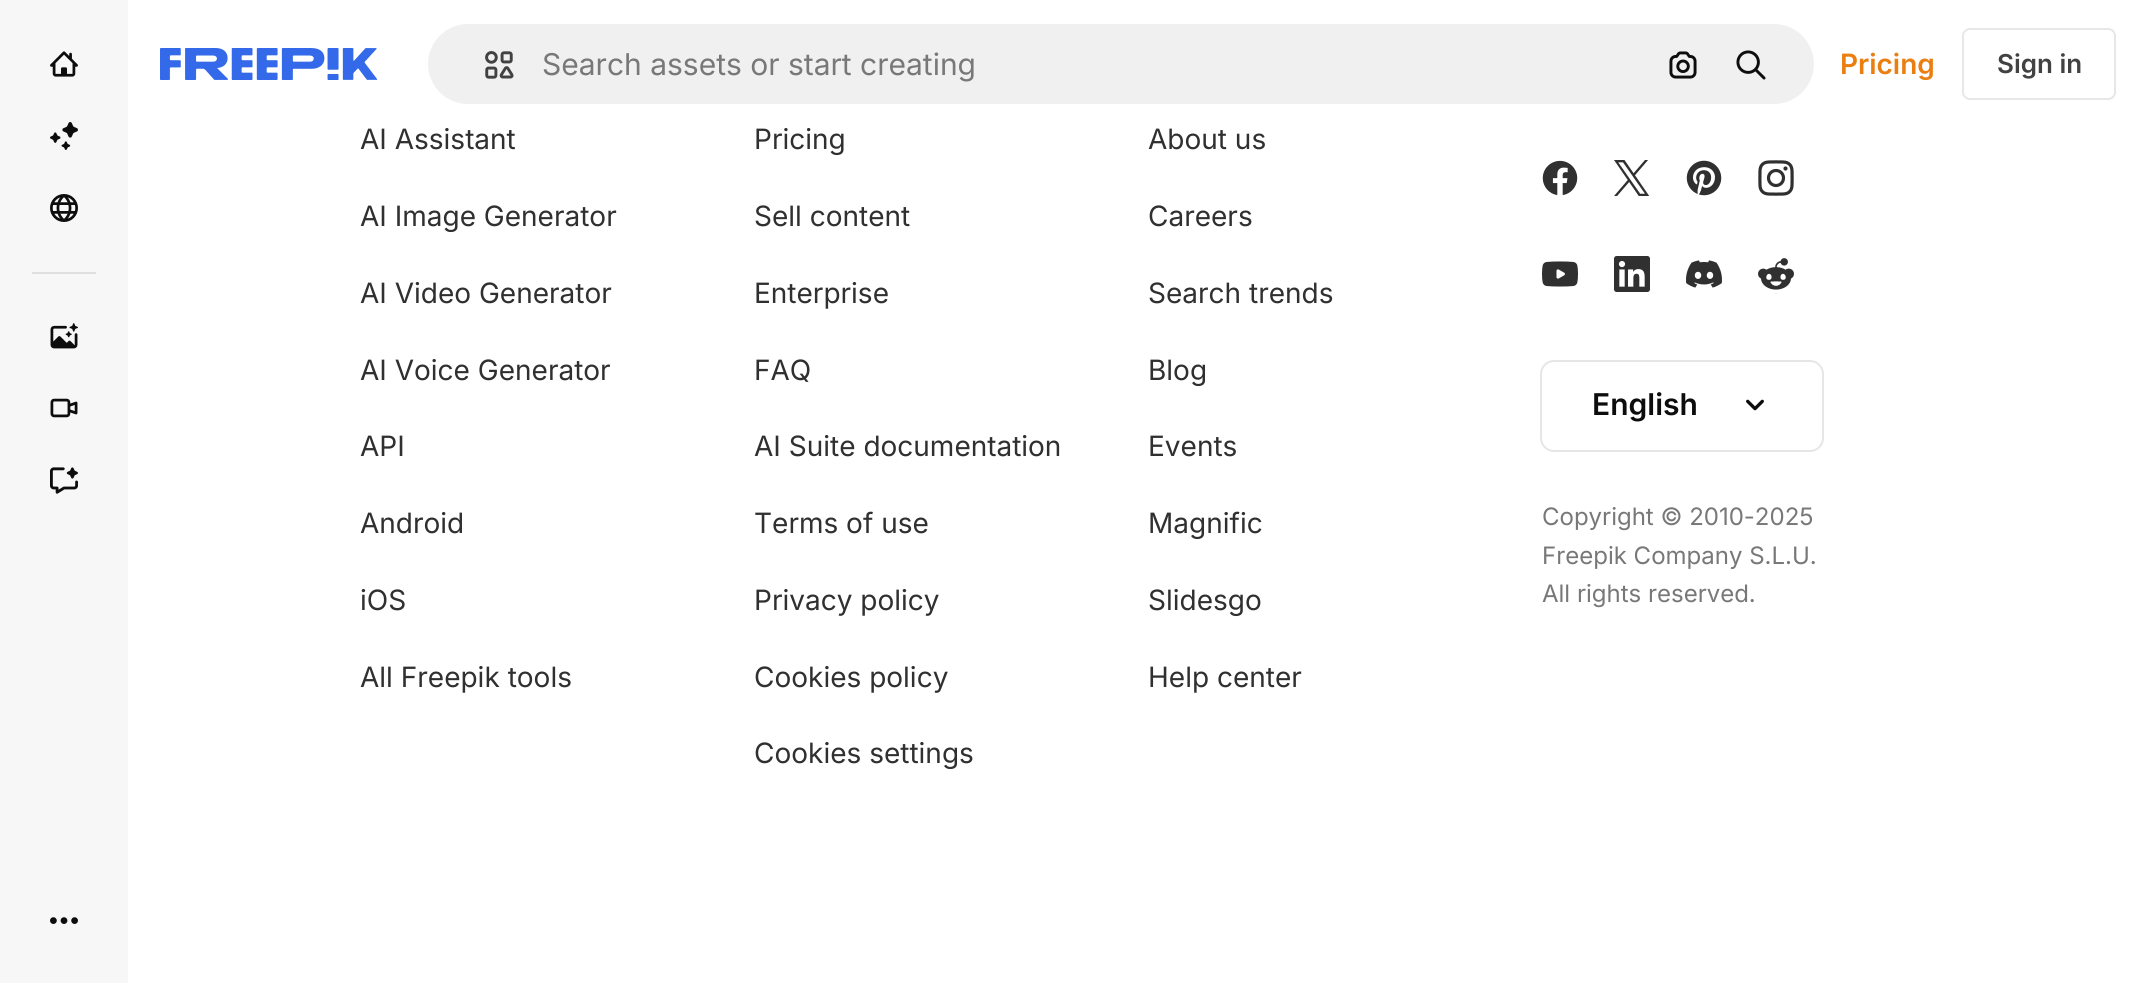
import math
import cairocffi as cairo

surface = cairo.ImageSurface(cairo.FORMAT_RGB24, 2148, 983)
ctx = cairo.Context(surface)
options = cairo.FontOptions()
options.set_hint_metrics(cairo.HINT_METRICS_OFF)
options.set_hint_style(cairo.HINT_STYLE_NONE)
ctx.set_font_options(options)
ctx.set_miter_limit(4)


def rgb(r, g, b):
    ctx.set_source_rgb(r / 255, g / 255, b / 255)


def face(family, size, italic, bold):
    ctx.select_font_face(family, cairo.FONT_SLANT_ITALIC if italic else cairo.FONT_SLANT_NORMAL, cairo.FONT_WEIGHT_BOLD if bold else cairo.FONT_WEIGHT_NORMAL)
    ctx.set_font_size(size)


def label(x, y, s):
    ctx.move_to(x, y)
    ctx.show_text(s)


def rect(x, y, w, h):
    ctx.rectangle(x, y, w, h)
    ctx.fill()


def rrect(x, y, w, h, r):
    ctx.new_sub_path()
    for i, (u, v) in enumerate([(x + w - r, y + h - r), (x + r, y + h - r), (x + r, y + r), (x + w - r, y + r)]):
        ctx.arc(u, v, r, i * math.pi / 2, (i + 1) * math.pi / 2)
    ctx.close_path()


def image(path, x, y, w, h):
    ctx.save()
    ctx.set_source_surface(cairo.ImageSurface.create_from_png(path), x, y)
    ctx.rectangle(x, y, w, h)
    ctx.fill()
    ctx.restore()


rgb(255, 255, 255)
ctx.paint()
rgb(247, 247, 247)
rect(0, 0, 128, 983)
image('image0.png', 50, 51, 28, 26)
image('image1.png', 50, 122, 28, 28)
image('image2.png', 50, 194, 28, 28)
rgb(224, 224, 224)
rect(32, 272, 64, 2)
image('image3.png', 50, 323, 28, 26)
image('image4.png', 50, 398, 28, 20)
image('image5.png', 50, 467, 28, 27)
image('image6.png', 50, 917, 28, 7)
image('image7.png', 160, 48, 218, 32)
rgb(240, 240, 240)
rrect(427, 23, 1388, 82, 41)
ctx.fill_preserve()
rgb(255, 255, 255)
ctx.stroke()
image('image8.png', 485, 51, 29, 28)
face('Inter', 30, 0, 0)
rgb(120, 120, 120)
label(542, 75, 'Search assets or start creating')
image('image9.png', 1669, 51, 28, 28)
image('image10.png', 1736, 50, 30, 30)
face('Inter SemiBold', 28, 0, 0)
rgb(234, 126, 17)
label(1840, 74, 'Pricing')
rrect(1963, 29, 152, 70, 7)
rgb(231, 231, 231)
ctx.stroke()
face('Inter SemiBold', 26, 0, 0)
rgb(66, 66, 66)
label(1997, 73, 'Sign in')
face('Inter', 28, 0, 0)
rgb(48, 48, 48)
label(360, 149, 'AI Assistant')
label(360, 226, 'AI Image Generator')
label(360, 303, 'AI Video Generator')
label(360, 380, 'AI Voice Generator')
label(360, 456, 'API')
label(360, 533, 'Android')
label(360, 610, 'iOS')
label(360, 687, 'All Freepik tools')
label(754, 149, 'Pricing')
label(754, 226, 'Sell content')
label(754, 303, 'Enterprise')
label(754, 380, 'FAQ')
label(754, 456, 'AI Suite documentation')
label(754, 533, 'Terms of use')
label(754, 610, 'Privacy policy')
label(754, 687, 'Cookies policy')
label(754, 763, 'Cookies settings')
label(1148, 149, 'About us')
label(1148, 226, 'Careers')
label(1148, 303, 'Search trends')
label(1148, 380, 'Blog')
label(1148, 456, 'Events')
label(1148, 533, 'Magnific')
label(1148, 610, 'Slidesgo')
label(1148, 687, 'Help center')
image('image11.png', 1542, 160, 36, 36)
image('image12.png', 1614, 160, 36, 36)
image('image13.png', 1686, 160, 36, 36)
image('image14.png', 1758, 160, 36, 36)
image('image15.png', 1542, 261, 36, 26)
image('image16.png', 1614, 256, 36, 36)
image('image17.png', 1686, 260, 36, 28)
image('image18.png', 1758, 258, 36, 32)
rrect(1541, 361, 282, 90, 13)
rgb(230, 230, 230)
ctx.stroke()
face('Inter SemiBold', 30, 0, 0)
rgb(13, 13, 13)
label(1592, 415, 'English')
image('image19.png', 1746, 399, 18, 12)
face('Inter', 24, 0, 0)
rgb(120, 120, 120)
label(1542, 525, 'Copyright © 2010-2025')
label(1542, 564, 'Freepik Company S.L.U.')
label(1542, 602, 'All rights reserved.')
surface.write_to_png('render.png')
